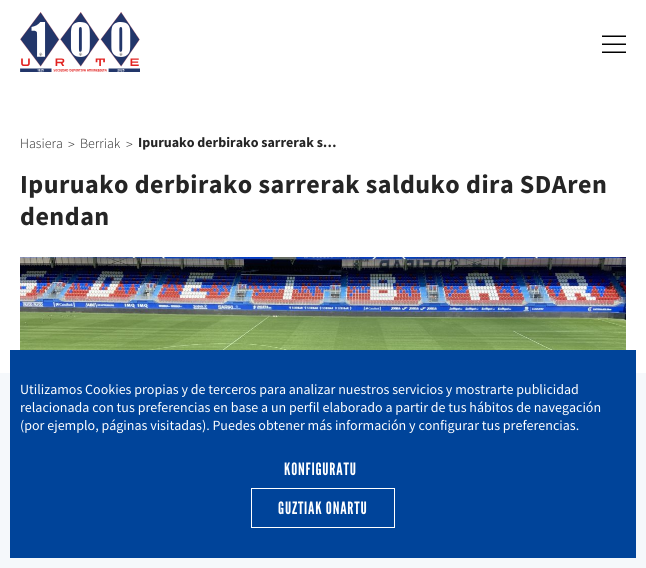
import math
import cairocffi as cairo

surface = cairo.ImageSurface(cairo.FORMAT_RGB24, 646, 568)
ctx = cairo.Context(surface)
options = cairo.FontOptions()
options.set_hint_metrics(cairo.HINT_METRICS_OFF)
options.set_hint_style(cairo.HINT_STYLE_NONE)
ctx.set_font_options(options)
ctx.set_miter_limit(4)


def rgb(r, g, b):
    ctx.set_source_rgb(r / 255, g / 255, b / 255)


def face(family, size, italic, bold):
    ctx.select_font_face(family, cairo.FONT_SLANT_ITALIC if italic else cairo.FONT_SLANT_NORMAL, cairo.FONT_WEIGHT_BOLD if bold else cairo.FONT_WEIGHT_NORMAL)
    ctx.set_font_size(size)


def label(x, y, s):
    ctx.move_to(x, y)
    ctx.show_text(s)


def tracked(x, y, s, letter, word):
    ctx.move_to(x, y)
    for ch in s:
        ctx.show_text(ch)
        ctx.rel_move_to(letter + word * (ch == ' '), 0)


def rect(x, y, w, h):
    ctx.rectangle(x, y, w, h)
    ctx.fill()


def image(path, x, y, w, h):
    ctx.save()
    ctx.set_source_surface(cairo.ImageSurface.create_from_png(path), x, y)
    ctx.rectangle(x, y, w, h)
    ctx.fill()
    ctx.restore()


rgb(255, 255, 255)
ctx.paint()
image('image0.png', 20, 12, 120, 60)
image('image1.png', 602, 35, 24, 18)
face('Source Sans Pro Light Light', 14, 0, 0)
rgb(37, 37, 37)
label(20, 148, 'Hasiera')
label(68, 149, '>')
label(80, 148, 'Berriak')
label(126, 149, '>')
face('Source Sans Pro', 14, 0, 1)
label(138, 147, 'Ipuruako derbirako sarrerak s…')
face('Source Sans Pro', 26, 0, 1)
tracked(20, 193, 'Ipuruako derbirako sarrerak salduko dira SDAren', 0.5, 0)
tracked(20, 225, 'dendan', 0.5, 0)
image('image2.png', 20, 257, 606, 93)
rgb(245, 248, 251)
rect(0, 373, 646, 195)
rgb(0, 68, 154)
rect(10, 350, 626, 208)
face('Source Sans Pro', 14, 0, 0)
rgb(255, 255, 255)
label(20, 394, 'Utilizamos Cookies propias y de terceros para analizar nuestros servicios y mostrarte publicidad')
label(20, 412, 'relacionada con tus preferencias en base a un perfil elaborado a partir de tus hábitos de navegación')
label(20, 430, '(por ejemplo, páginas visitadas). Puedes obtener más información y configurar tus preferencias.')
face('League Gothic', 17, 0, 0)
tracked(284, 475, 'KONFIGURATU', 0.8, 0)
ctx.rectangle(251.5, 488.5, 143, 39)
ctx.set_line_width(1)
ctx.stroke()
tracked(278, 514, 'GUZTIAK ONARTU', 0.8, 0)
surface.write_to_png('render.png')
